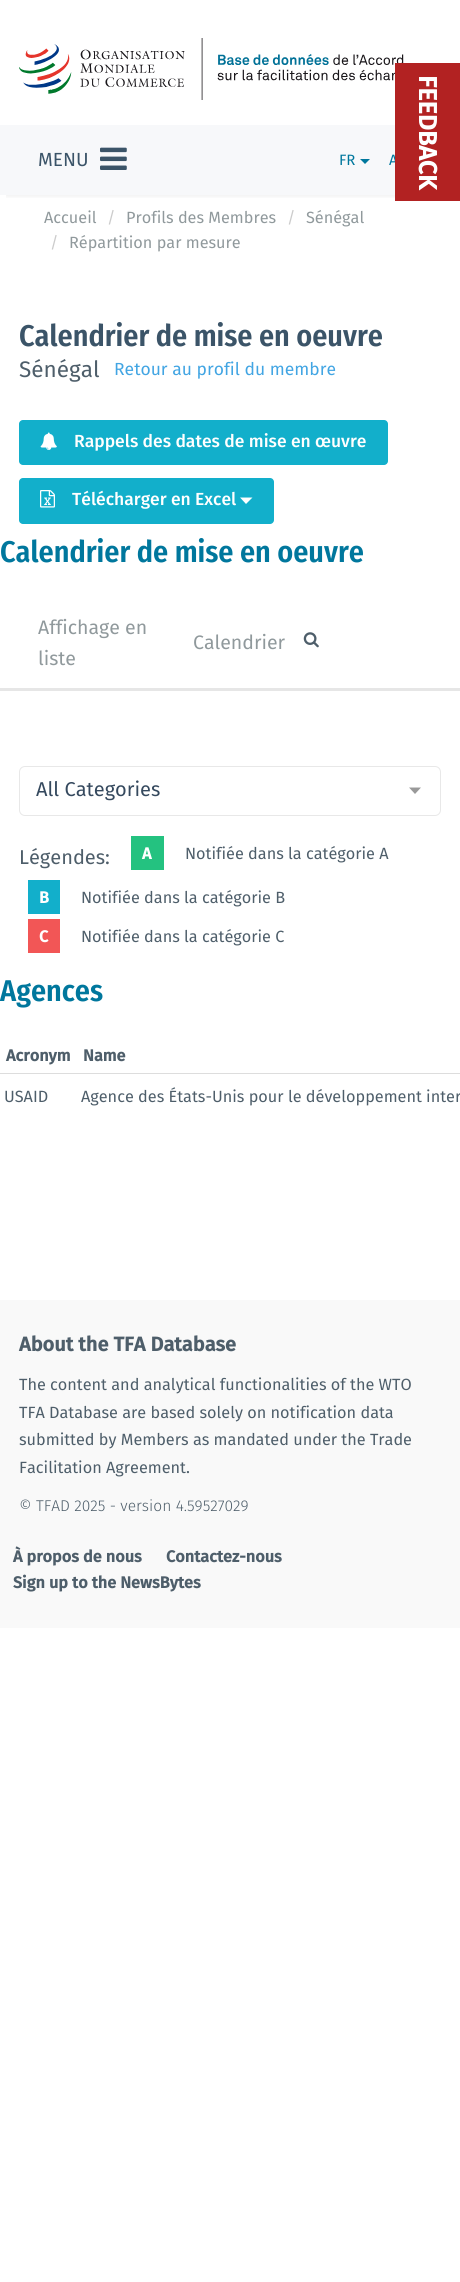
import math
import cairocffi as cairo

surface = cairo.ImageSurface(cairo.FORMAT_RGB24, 460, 2282)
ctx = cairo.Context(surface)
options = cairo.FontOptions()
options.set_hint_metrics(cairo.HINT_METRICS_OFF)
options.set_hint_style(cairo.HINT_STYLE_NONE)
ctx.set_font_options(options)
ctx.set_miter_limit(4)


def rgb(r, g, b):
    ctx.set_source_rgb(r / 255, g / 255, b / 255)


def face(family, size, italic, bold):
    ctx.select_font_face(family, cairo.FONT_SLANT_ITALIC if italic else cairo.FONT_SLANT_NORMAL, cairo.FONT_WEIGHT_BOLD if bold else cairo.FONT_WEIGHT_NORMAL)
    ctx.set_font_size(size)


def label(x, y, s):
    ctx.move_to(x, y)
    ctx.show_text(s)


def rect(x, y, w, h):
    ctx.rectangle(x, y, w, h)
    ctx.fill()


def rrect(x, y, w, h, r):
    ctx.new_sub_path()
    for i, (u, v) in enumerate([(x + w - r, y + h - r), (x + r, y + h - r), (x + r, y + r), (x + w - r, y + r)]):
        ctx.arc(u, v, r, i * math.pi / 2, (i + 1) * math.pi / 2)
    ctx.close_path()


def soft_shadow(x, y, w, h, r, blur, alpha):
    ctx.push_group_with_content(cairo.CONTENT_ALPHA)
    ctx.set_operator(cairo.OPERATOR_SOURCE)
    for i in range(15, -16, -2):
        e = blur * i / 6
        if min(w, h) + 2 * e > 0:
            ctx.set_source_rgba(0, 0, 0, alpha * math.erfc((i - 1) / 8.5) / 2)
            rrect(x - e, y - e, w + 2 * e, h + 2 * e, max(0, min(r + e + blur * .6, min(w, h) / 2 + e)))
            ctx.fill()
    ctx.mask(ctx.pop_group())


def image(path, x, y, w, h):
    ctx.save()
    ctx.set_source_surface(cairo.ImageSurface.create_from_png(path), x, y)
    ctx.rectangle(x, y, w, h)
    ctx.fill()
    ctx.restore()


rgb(255, 255, 255)
ctx.paint()
ctx.save()
ctx.rectangle(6, 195, 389, 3)
ctx.clip()
rgb(0, 0, 0)
soft_shadow(6, 13, 448, 182, 0, 3, 0.1)
ctx.restore()
image('image0.png', 19, 38, 385, 62)
rgb(247, 248, 250)
rect(0, 125, 395, 70)
face('Fira Sans', 15, 0, 0)
rgb(0, 119, 157)
label(389, 165, 'A')
rgb(178, 34, 34)
rect(395, 63, 65, 138)
face('Fira Sans', 25, 0, 1)
rgb(255, 255, 255)
ctx.save()
ctx.translate(419, 75)
ctx.rotate(90 * math.pi / 180)
label(0, 0, 'FEEDBACK')
ctx.restore()
face('Fira Sans', 19, 0, 0)
rgb(59, 84, 104)
label(38, 166, 'MENU')
image('image1.png', 100, 147, 27, 23)
face('Fira Sans', 15, 0, 0)
rgb(0, 119, 157)
label(339, 165, 'FR')
ctx.new_path()
ctx.move_to(360, 159)
ctx.line_to(370, 159)
ctx.line_to(365, 164)
ctx.close_path()
ctx.fill()
face('Fira Sans', 16.25, 0, 0)
rgb(144, 153, 156)
label(44, 223, 'Accueil')
rgb(204, 204, 204)
label(107, 223, '/')
rgb(144, 153, 156)
label(126, 223, 'Profils des Membres')
rgb(204, 204, 204)
label(287, 223, '/')
rgb(144, 153, 156)
label(306, 223, 'Sénégal')
rgb(204, 204, 204)
label(50, 248, '/')
rgb(144, 153, 156)
label(69, 248, 'Répartition par mesure')
face('Fira Sans Condensed SemiBold', 30, 0, 0)
rgb(59, 84, 104)
label(19, 346, 'Calendrier de mise en oeuvre')
face('Fira Sans', 22.5, 0, 0)
rgb(78, 94, 106)
label(19, 377, 'Sénégal')
face('Fira Sans', 17.5, 0, 0)
rgb(66, 165, 227)
label(114, 375, 'Retour au profil du membre')
rgb(18, 175, 203)
rrect(19, 420, 369, 45, 4)
ctx.fill()
image('image2.png', 40, 432, 17, 18)
face('Fira Sans Medium', 17.5, 0, 0)
rgb(255, 255, 255)
label(74, 447, 'Rappels des dates de mise en œuvre')
rgb(18, 175, 203)
rrect(19, 478, 255, 46, 4)
ctx.fill()
image('image3.png', 40, 490, 15, 18)
rgb(255, 255, 255)
label(72, 505, 'Télécharger en Excel')
ctx.new_path()
ctx.move_to(240, 497.5)
ctx.line_to(252.5, 497.5)
ctx.line_to(246, 504)
ctx.close_path()
ctx.fill()
face('Fira Sans Condensed SemiBold', 30, 0, 0)
rgb(0, 119, 157)
label(0, 562, 'Calendrier de mise en oeuvre')
rgb(230, 230, 230)
rect(0, 688, 460, 3)
face('Fira Sans', 19.5, 0, 0)
rgb(144, 153, 156)
label(38, 634, 'Affichage en')
label(38, 665, 'liste')
label(193, 649, 'Calendrier')
image('image4.png', 303, 632, 16, 16)
rrect(19.5, 766.5, 421, 49, 5.5)
rgb(232, 232, 232)
ctx.set_line_width(1)
ctx.stroke()
face('Fira Sans', 20, 0, 0)
rgb(53, 73, 94)
label(36, 796, 'All Categories')
rgb(153, 153, 153)
ctx.new_path()
ctx.move_to(409, 787.5)
ctx.line_to(421, 787.5)
ctx.line_to(415, 794)
ctx.close_path()
ctx.fill()
rgb(78, 94, 106)
label(19, 864, 'Légendes:')
rgb(36, 194, 128)
rect(131, 836, 33, 34)
face('Fira Sans', 16.25, 0, 1)
rgb(255, 255, 255)
label(142, 859, 'A')
face('Fira Sans', 16.25, 0, 0)
rgb(78, 94, 106)
label(185, 859, 'Notifiée dans la catégorie A')
rgb(18, 175, 203)
rect(28, 880, 32, 34)
face('Fira Sans', 16.25, 0, 1)
rgb(255, 255, 255)
label(39, 903, 'B')
face('Fira Sans', 16.25, 0, 0)
rgb(78, 94, 106)
label(81, 903, 'Notifiée dans la catégorie B')
rgb(242, 86, 86)
rect(28, 919, 32, 34)
face('Fira Sans', 16.25, 0, 1)
rgb(255, 255, 255)
label(39, 942, 'C')
face('Fira Sans', 16.25, 0, 0)
rgb(78, 94, 106)
label(81, 942, 'Notifiée dans la catégorie C')
face('Fira Sans Condensed SemiBold', 30, 0, 0)
rgb(0, 119, 157)
label(0, 1001, 'Agences')
face('Fira Sans', 16.25, 0, 1)
rgb(78, 94, 106)
label(6, 1061, 'Acronym')
label(83, 1061, 'Name')
face('Fira Sans', 16.25, 0, 0)
label(4, 1102, 'USAID')
rgb(221, 221, 221)
rect(0, 1073, 460, 1)
rgb(78, 94, 106)
label(81, 1102, 'Agence des États-Unis pour le développement inter')
rgb(249, 249, 249)
rect(0, 1300, 460, 328)
face('Fira Sans', 20, 0, 1)
rgb(78, 94, 106)
label(19, 1351, 'About the TFA Database')
face('Fira Sans', 16.25, 0, 0)
label(19, 1390, 'The content and analytical functionalities of the WTO')
label(19, 1418, 'TFA Database are based solely on notification data')
label(19, 1445, 'submitted by Members as mandated under the Trade')
label(19, 1473, 'Facilitation Agreement.')
face('Fira Sans Light', 15.6, 0, 0)
label(19, 1511, '© TFAD 2025 - version 4.59527029')
face('Fira Sans', 16.25, 0, 1)
label(13, 1562, 'À propos de nous')
label(166, 1562, 'Contactez-nous')
label(13, 1588, 'Sign up to the NewsBytes')
surface.write_to_png('render.png')
